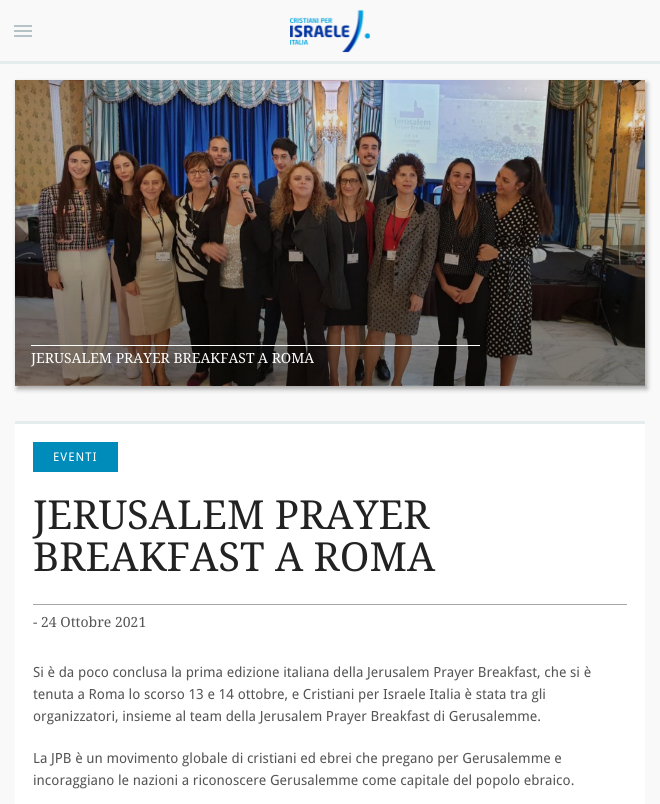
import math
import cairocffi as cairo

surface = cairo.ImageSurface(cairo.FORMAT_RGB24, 660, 804)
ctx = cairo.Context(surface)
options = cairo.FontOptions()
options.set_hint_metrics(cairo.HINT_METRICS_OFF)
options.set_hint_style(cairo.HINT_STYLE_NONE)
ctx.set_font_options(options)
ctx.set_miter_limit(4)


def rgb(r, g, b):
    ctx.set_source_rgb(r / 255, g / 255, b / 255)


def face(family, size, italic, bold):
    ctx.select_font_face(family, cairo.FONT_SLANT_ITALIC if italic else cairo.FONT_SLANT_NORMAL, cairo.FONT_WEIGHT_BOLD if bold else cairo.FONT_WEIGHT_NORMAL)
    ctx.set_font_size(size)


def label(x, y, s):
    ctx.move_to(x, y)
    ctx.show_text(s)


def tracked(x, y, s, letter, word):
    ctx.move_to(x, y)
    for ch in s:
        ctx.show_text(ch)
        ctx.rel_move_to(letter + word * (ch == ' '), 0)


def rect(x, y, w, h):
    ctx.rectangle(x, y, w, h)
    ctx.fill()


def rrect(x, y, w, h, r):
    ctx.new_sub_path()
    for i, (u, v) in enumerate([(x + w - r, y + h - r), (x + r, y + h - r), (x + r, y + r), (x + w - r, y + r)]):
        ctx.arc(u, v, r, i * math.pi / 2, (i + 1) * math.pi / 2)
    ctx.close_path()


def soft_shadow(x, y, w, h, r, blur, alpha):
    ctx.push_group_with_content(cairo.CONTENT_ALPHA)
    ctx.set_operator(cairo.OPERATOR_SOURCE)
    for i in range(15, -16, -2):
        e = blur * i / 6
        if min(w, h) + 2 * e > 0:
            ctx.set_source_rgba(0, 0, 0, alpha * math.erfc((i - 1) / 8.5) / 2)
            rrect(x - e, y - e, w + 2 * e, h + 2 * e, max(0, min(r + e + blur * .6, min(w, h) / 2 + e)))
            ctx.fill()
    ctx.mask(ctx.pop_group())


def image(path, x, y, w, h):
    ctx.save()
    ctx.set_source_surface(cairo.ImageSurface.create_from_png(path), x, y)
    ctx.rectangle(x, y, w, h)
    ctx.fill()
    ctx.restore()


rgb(249, 249, 249)
ctx.paint()
rgb(228, 236, 238)
rect(0, 61, 660, 3)
rgb(181, 195, 198)
rect(14, 35, 18, 2)
rect(14, 30, 18, 2)
rect(14, 25, 18, 2)
image('image0.png', 290, 9, 80, 44)
rgb(0, 0, 0)
soft_shadow(17, 83, 630, 306, 0, 2.5, 0.35)
image('image1.png', 15, 80, 630, 306)
image('image2.png', 15, 80, 630, 306)
rgb(255, 255, 255)
rect(31, 345, 449, 1)
face('Droid Serif', 14, 0, 0)
label(31, 363, 'JERUSALEM PRAYER BREAKFAST A ROMA')
rect(15, 424, 630, 380)
rgb(228, 236, 238)
rect(15, 421, 630, 3)
rgb(0, 140, 186)
rect(33, 442, 85, 30)
face('Droid Sans', 12, 0, 0)
rgb(255, 255, 255)
tracked(53, 461, 'EVENTI', 1, 0)
face('Droid Serif', 40, 0, 0)
rgb(34, 34, 34)
label(33, 529, 'JERUSALEM PRAYER')
label(33, 571, 'BREAKFAST A ROMA')
rgb(167, 167, 167)
rect(33, 604, 594, 1)
face('Droid Serif', 14, 0, 0)
rgb(85, 85, 85)
label(33, 627, '- 24 Ottobre 2021')
face('Droid Sans', 14, 0, 0)
label(33, 677, 'Si è da poco conclusa la prima edizione italiana della Jerusalem Prayer Breakfast, che si è')
label(33, 699, 'tenuta a Roma lo scorso 13 e 14 ottobre, e Cristiani per Israele Italia è stata tra gli')
label(33, 721, 'organizzatori, insieme al team della Jerusalem Prayer Breakfast di Gerusalemme.')
label(33, 763, 'La JPB è un movimento globale di cristiani ed ebrei che pregano per Gerusalemme e')
label(33, 785, 'incoraggiano le nazioni a riconoscere Gerusalemme come capitale del popolo ebraico.')
surface.write_to_png('render.png')
